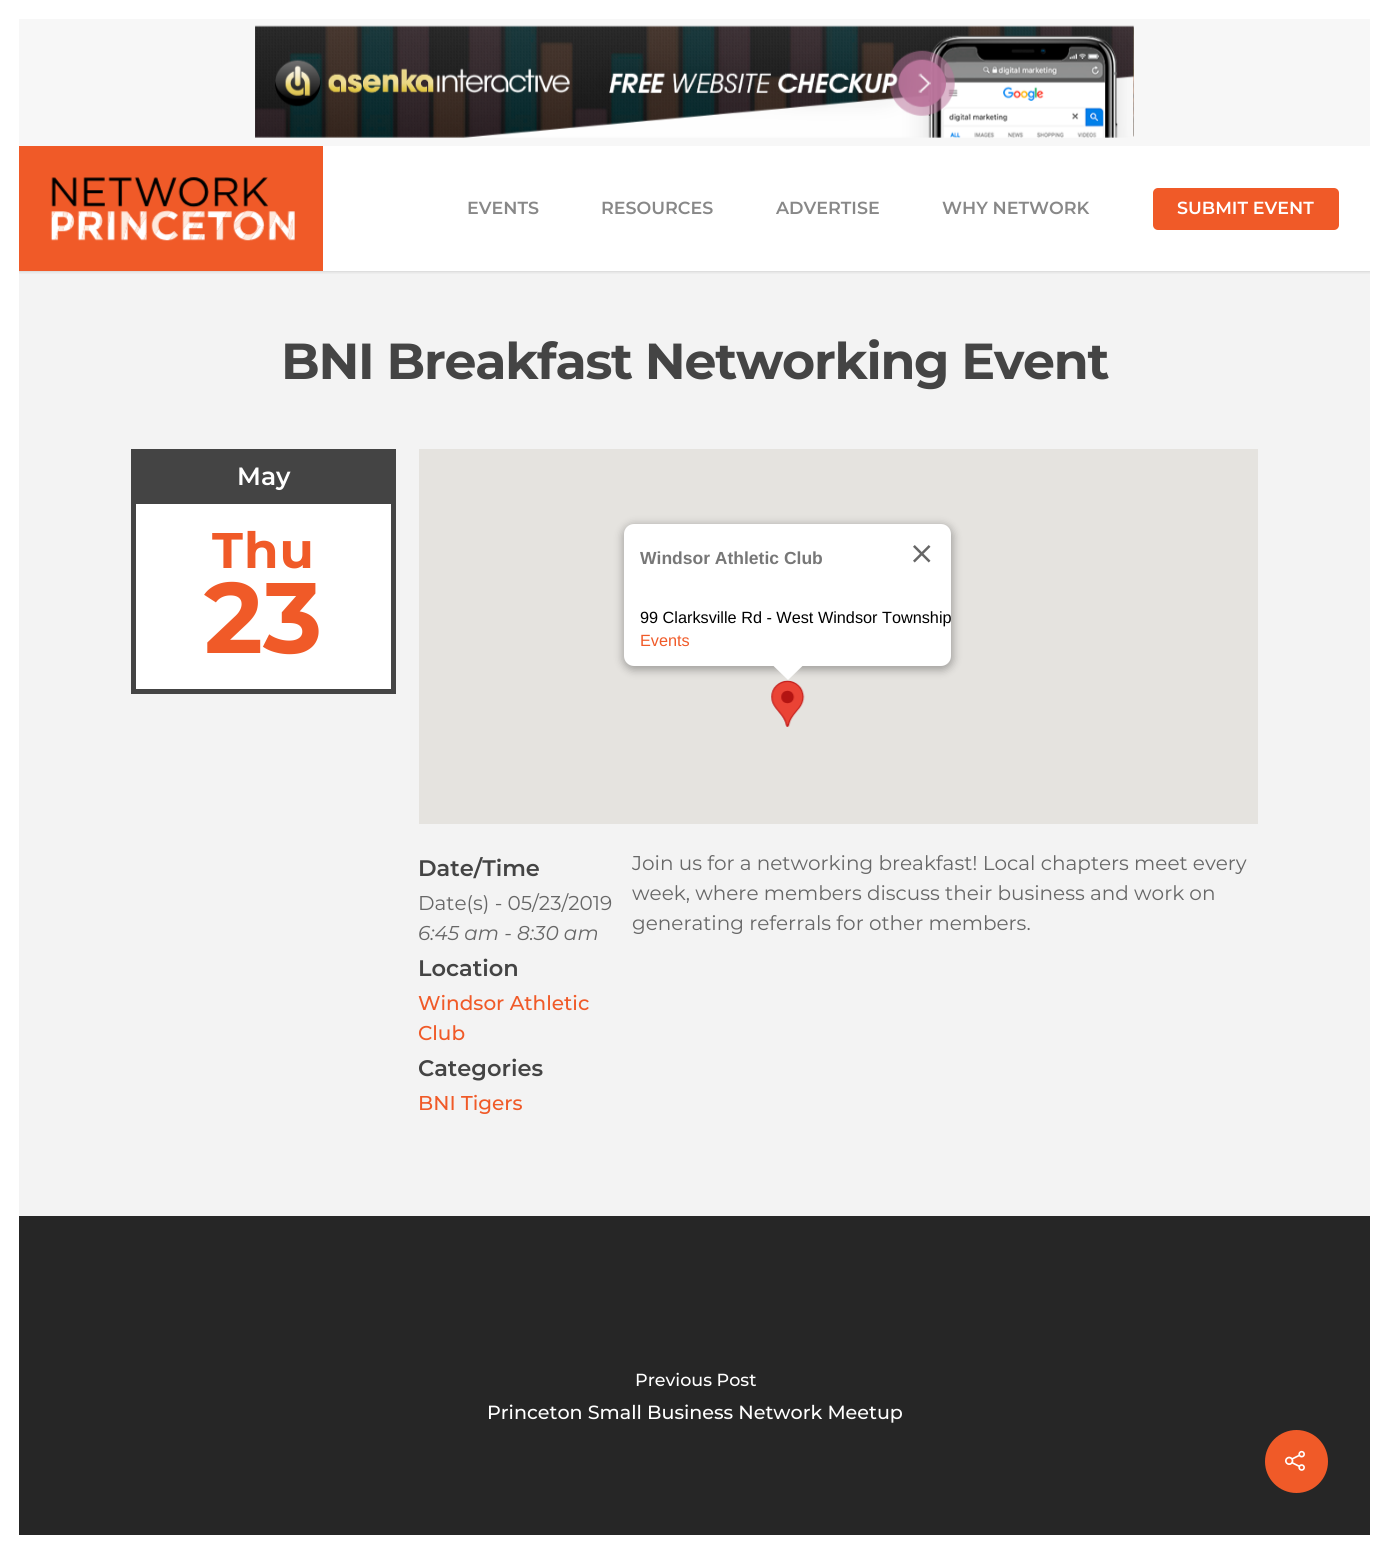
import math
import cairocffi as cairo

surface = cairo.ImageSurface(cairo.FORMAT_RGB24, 1388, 1553)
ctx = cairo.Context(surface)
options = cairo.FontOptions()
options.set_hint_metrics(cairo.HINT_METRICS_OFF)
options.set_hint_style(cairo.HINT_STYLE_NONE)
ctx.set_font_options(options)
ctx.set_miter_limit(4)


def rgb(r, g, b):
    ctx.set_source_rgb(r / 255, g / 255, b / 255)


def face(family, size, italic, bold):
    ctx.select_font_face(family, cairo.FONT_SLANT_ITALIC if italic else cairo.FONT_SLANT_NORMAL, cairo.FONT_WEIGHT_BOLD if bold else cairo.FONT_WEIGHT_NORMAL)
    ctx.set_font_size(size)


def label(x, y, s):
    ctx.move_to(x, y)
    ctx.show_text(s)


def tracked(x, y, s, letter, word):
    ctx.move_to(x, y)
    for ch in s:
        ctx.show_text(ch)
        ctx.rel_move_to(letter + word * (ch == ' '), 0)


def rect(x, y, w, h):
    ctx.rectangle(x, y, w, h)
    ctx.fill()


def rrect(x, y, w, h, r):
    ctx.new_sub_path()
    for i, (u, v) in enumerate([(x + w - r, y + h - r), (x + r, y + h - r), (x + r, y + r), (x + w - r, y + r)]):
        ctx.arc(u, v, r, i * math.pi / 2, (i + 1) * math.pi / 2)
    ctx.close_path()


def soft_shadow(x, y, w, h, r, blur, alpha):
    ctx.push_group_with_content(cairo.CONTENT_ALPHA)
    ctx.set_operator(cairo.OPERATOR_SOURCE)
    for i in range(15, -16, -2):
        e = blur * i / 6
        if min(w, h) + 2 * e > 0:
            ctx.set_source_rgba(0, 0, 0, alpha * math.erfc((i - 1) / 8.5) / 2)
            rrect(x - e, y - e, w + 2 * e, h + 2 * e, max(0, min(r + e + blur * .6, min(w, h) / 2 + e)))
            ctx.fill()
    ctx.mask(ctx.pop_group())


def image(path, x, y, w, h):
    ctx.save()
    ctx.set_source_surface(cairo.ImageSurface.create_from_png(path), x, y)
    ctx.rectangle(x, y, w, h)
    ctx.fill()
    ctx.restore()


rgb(255, 255, 255)
ctx.paint()
rgb(243, 243, 243)
rect(19, 271, 1351, 945)
ctx.save()
ctx.rectangle(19, 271, 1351, 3)
ctx.clip()
rgb(0, 0, 0)
soft_shadow(0, 0, 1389, 271, 0, 2, 0.22)
ctx.restore()
rgb(247, 247, 247)
rect(19, 19, 1351, 127)
image('image0.png', 255, 25, 879, 113)
image('image1.png', 1133, 27, 1, 110)
rgb(240, 90, 40)
rect(19, 146, 304, 125)
image('image2.png', 50, 177, 245, 64)
face('Montserrat SemiBold', 17.5, 0, 0)
rgb(136, 136, 136)
label(467, 214, 'EVENTS')
label(601, 214, 'RESOURCES')
label(776, 214, 'ADVERTISE')
label(942, 214, 'WHY NETWORK')
rgb(240, 90, 40)
rrect(1153, 188, 186, 42, 5)
ctx.fill()
rgb(255, 255, 255)
label(1177, 214, 'SUBMIT EVENT')
rect(0, 271, 19, 3)
rect(1370, 271, 18, 3)
face('Montserrat', 50.6, 0, 1)
rgb(68, 68, 68)
tracked(281, 379, 'BNI Breakfast Networking Event', -1.25, 0)
rgb(255, 255, 255)
rect(136, 504, 255, 185)
ctx.rectangle(133.5, 451.5, 260, 240)
rgb(68, 68, 68)
ctx.set_line_width(5)
ctx.stroke()
rect(136, 454, 255, 50)
face('Montserrat SemiBold', 25, 0, 0)
rgb(255, 255, 255)
label(237, 485, 'May')
face('Montserrat', 50, 0, 1)
rgb(240, 90, 40)
tracked(212, 568, 'Thu', 1, 0)
face('Montserrat', 100, 0, 1)
label(204, 653, '23')
rgb(229, 227, 223)
rect(419, 449, 839, 375)
image('image4.png', 771, 680, 34, 47)
rgb(0, 0, 0)
soft_shadow(623, 525, 330, 145, 11, 4.5, 0.3)
rgb(255, 255, 255)
rrect(624, 524, 327, 142, 10)
ctx.fill()
face('Liberation Sans', 17.5, 0, 1)
rgb(119, 119, 119)
label(640, 564, 'Windsor Athletic Club')
image('image3.png', 913, 545, 18, 18)
face('Liberation Sans', 16.25, 0, 0)
rgb(0, 0, 0)
label(640, 623, '99 Clarksville Rd - West Windsor Township')
rgb(240, 90, 40)
label(640, 646, 'Events')
rgb(255, 255, 255)
ctx.new_path()
ctx.move_to(773, 665)
ctx.line_to(773, 665.5)
ctx.line_to(788, 680)
ctx.line_to(803.5, 665)
ctx.close_path()
ctx.fill()
face('Montserrat SemiBold', 22.5, 0, 0)
rgb(68, 68, 68)
label(418, 876, 'Date/Time')
face('Montserrat', 20, 0, 0)
rgb(103, 103, 103)
label(418, 910, 'Date(s) - 05/23/2019')
face('Montserrat', 20, 1, 0)
label(418, 940, '6:45 am - 8:30 am')
face('Montserrat SemiBold', 22.5, 0, 0)
rgb(68, 68, 68)
label(418, 976, 'Location')
face('Montserrat Medium', 20, 0, 0)
rgb(240, 90, 40)
label(418, 1010, 'Windsor Athletic')
label(418, 1040, 'Club')
face('Montserrat SemiBold', 22.5, 0, 0)
rgb(68, 68, 68)
label(418, 1076, 'Categories')
face('Montserrat Medium', 20, 0, 0)
rgb(240, 90, 40)
label(418, 1110, 'BNI Tigers')
face('Montserrat', 20, 0, 0)
rgb(103, 103, 103)
label(632, 870, 'Join us for a networking breakfast! Local chapters meet every')
label(632, 900, 'week, where members discuss their business and work on')
label(632, 930, 'generating referrals for other members.')
rgb(38, 38, 38)
rect(19, 1216, 1351, 319)
face('Montserrat Medium', 17.5, 0, 0)
rgb(255, 255, 255)
label(635, 1386, 'Previous Post')
face('Montserrat Medium', 19.1, 0, 0)
label(487, 1419, 'Princeton Small Business Network Meetup')
rgb(240, 90, 40)
ctx.new_path()
ctx.arc(1296.5, 1461.5, 31.5, 0, 2 * math.pi)
ctx.fill()
image('image5.png', 1285, 1450, 20, 21)
surface.write_to_png('render.png')
